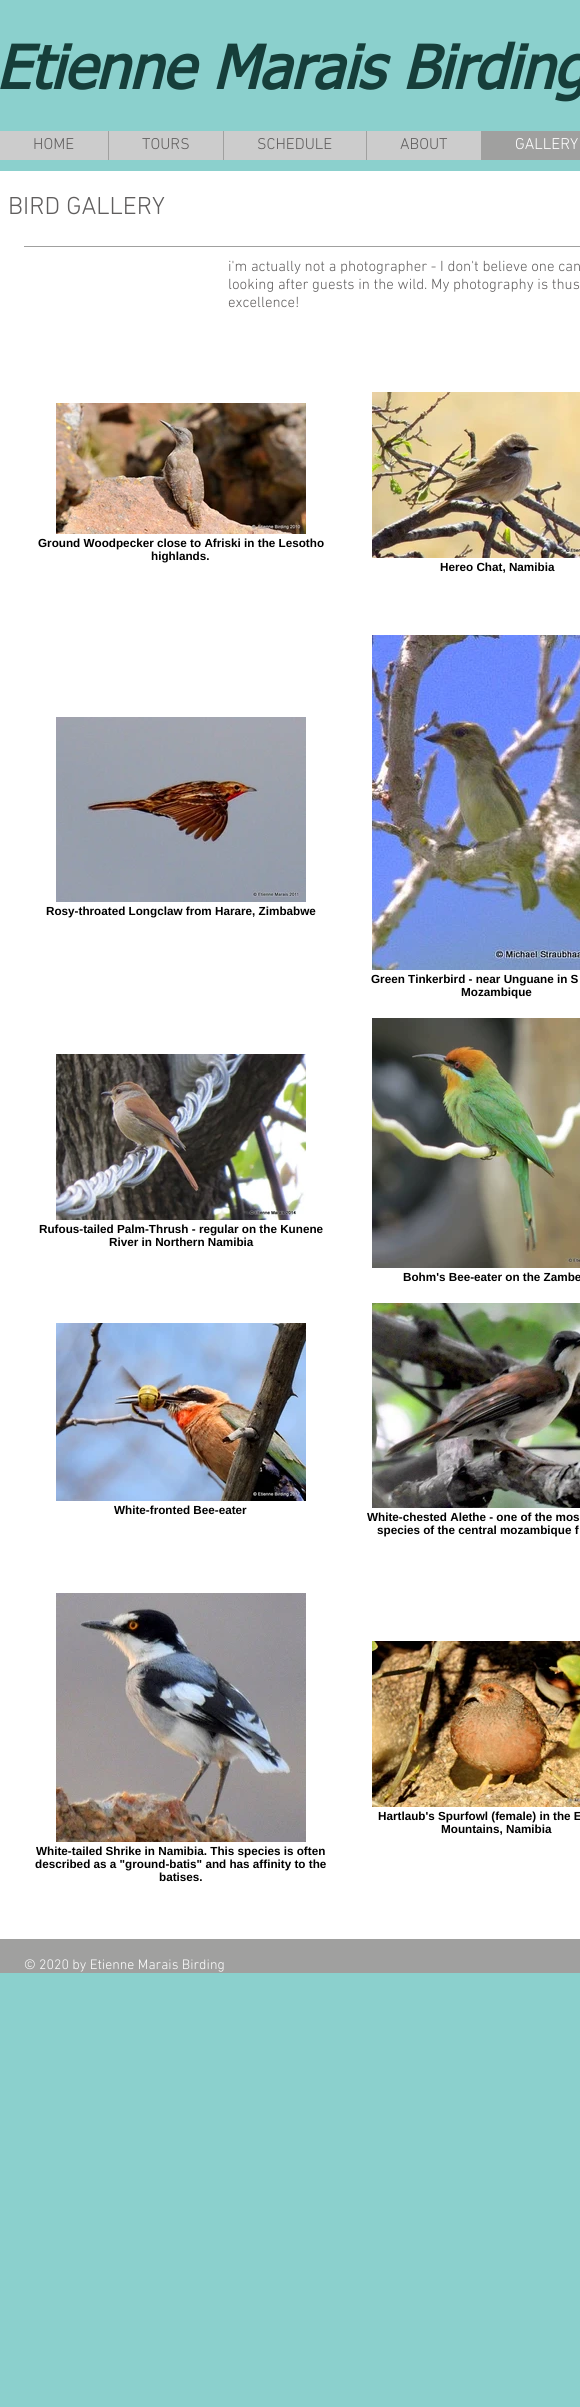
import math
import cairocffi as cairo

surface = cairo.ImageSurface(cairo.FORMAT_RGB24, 580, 2407)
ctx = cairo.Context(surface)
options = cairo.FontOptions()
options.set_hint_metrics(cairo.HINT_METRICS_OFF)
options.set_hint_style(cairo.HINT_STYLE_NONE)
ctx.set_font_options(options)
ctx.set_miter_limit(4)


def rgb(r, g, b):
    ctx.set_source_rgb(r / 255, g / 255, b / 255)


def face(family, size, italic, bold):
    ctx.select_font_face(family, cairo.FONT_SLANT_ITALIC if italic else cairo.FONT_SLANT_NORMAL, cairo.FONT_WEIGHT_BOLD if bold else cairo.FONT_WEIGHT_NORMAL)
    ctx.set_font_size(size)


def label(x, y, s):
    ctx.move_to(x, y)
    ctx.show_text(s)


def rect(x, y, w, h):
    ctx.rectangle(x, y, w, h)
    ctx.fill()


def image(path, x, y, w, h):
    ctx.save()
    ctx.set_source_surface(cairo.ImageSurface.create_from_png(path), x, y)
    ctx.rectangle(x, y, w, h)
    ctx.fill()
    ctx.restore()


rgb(139, 208, 205)
ctx.paint()
face('tahoma', 60, 1, 1)
rgb(22, 62, 58)
label(-4, 89, 'Etienne Marais Birding')
rgb(204, 204, 204)
rect(0, 131, 481, 29)
face('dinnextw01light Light', 16, 0, 0)
rgb(96, 94, 94)
label(33, 149, 'HOME')
rgb(160, 160, 159)
rect(108, 131, 1, 29)
rgb(96, 94, 94)
label(142, 149, 'TOURS')
rgb(160, 160, 159)
rect(223, 131, 1, 29)
rgb(96, 94, 94)
label(257, 149, 'SCHEDULE')
rgb(160, 160, 159)
rect(366, 131, 1, 29)
rgb(96, 94, 94)
label(400, 149, 'ABOUT')
rgb(160, 160, 159)
rect(481, 131, 99, 29)
rgb(255, 255, 255)
label(515, 149, 'GALLERY')
rect(0, 171, 580, 1768)
face('dinnextw01light Light', 25, 0, 0)
rgb(96, 94, 94)
label(8, 214, 'BIRD GALLERY')
rgb(160, 160, 159)
rect(24, 246, 556, 1)
face('dinnextw01light Light', 15, 0, 0)
rgb(96, 94, 94)
label(228, 271, 'i\'m actually not a photographer - I don\'t believe one can')
label(228, 289, 'looking after guests in the wild. My photography is thus')
label(228, 307, 'excellence!')
image('image0.png', 56, 403, 250, 131)
face('Liberation Sans', 11.7, 0, 1)
rgb(0, 0, 0)
label(38, 547, 'Ground Woodpecker close to Afriski in the Lesotho')
label(151, 560, 'highlands.')
image('image1.png', 372, 392, 208, 166)
label(440, 571, 'Hereo Chat, Namibia')
image('image2.png', 56, 717, 250, 185)
label(46, 915, 'Rosy-throated Longclaw from Harare, Zimbabwe')
image('image3.png', 372, 635, 208, 335)
label(371, 983, 'Green Tinkerbird - near Unguane in S')
label(461, 996, 'Mozambique')
image('image4.png', 56, 1054, 250, 166)
label(39, 1233, 'Rufous-tailed Palm-Thrush - regular on the Kunene')
label(109, 1246, 'River in Northern Namibia')
image('image5.png', 372, 1018, 208, 250)
label(403, 1281, 'Bohm\'s Bee-eater on the Zambe')
image('image6.png', 56, 1323, 250, 178)
label(114, 1514, 'White-fronted Bee-eater')
image('image7.png', 372, 1303, 208, 205)
label(367, 1521, 'White-chested Alethe - one of the mos')
label(377, 1534, 'species of the central mozambique f')
image('image8.png', 372, 1641, 208, 166)
label(378, 1820, 'Hartlaub\'s Spurfowl (female) in the E')
label(441, 1833, 'Mountains, Namibia')
image('image9.png', 56, 1593, 250, 249)
label(36, 1855, 'White-tailed Shrike in Namibia. This species is often')
label(35, 1868, 'described as a "ground-batis" and has affinity to the')
label(159, 1881, 'batises.')
rgb(160, 160, 159)
rect(0, 1939, 580, 34)
face('dinnextw01light Light', 14, 0, 0)
rgb(255, 255, 255)
label(24, 1969, '© 2020 by Etienne Marais Birding')
surface.write_to_png('render.png')
